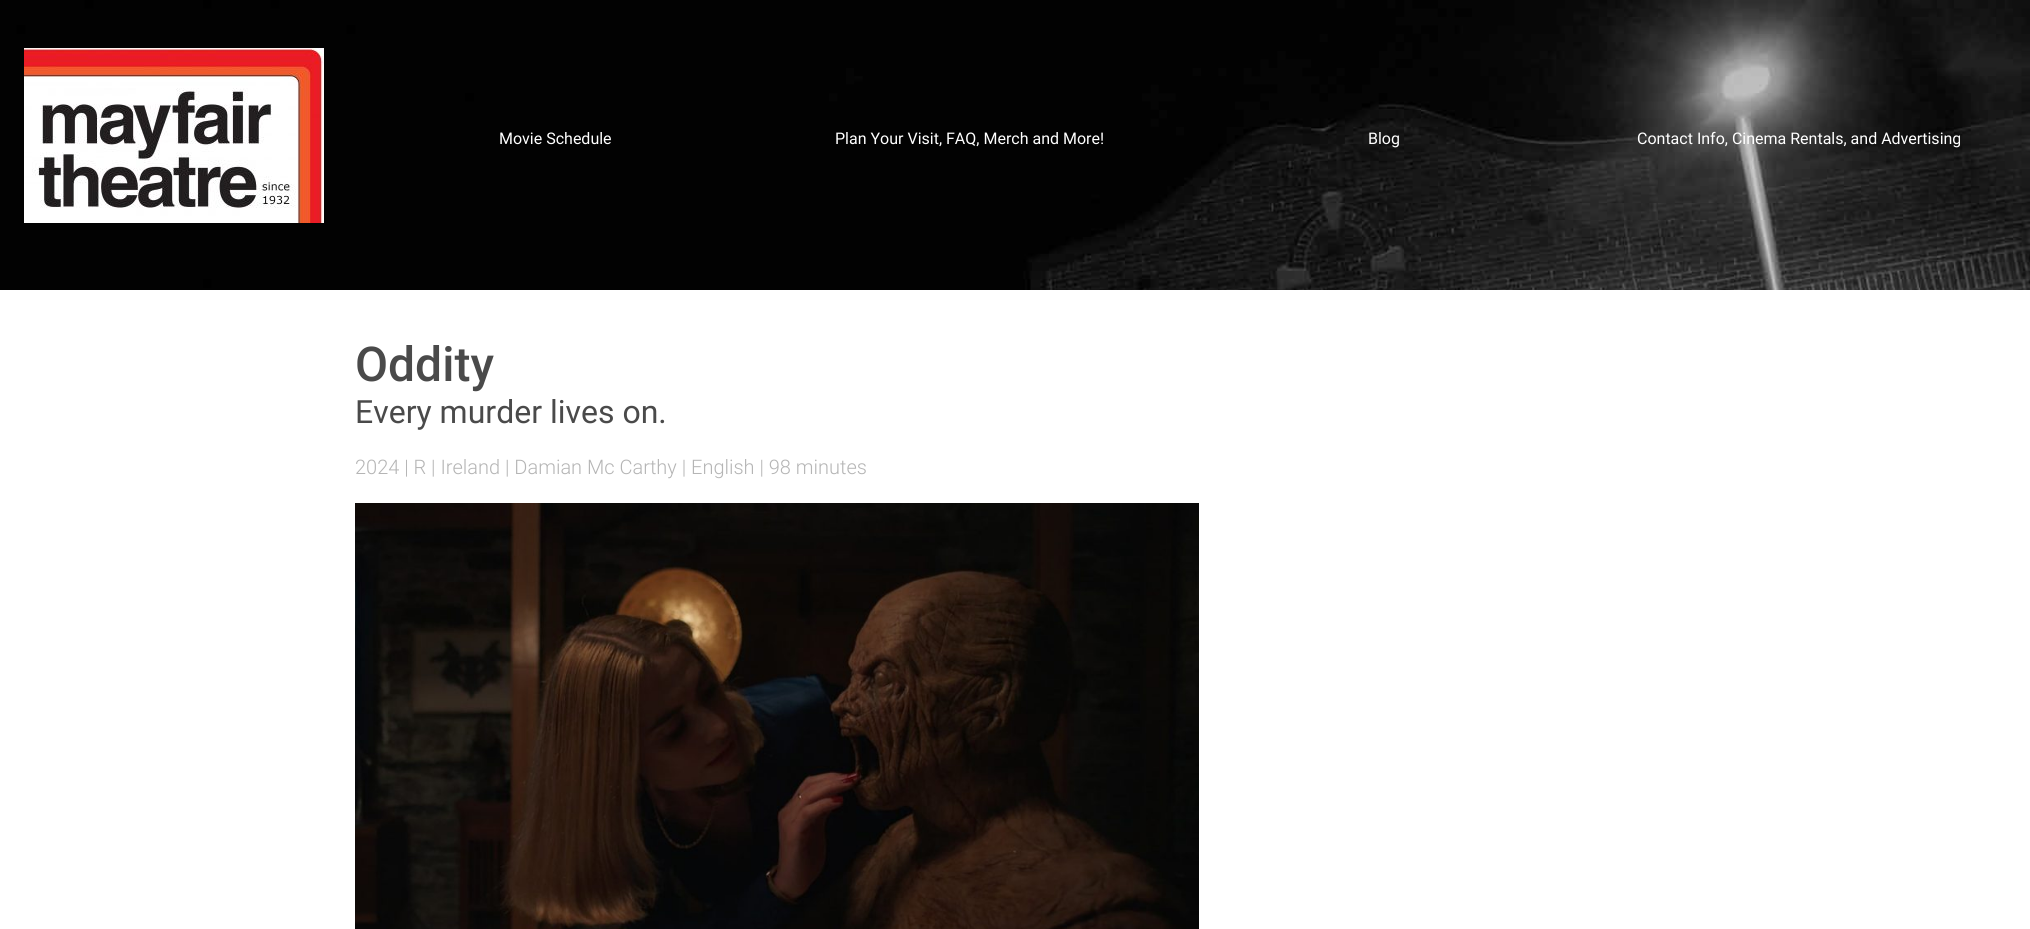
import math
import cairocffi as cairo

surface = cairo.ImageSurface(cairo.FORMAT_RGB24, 2030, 929)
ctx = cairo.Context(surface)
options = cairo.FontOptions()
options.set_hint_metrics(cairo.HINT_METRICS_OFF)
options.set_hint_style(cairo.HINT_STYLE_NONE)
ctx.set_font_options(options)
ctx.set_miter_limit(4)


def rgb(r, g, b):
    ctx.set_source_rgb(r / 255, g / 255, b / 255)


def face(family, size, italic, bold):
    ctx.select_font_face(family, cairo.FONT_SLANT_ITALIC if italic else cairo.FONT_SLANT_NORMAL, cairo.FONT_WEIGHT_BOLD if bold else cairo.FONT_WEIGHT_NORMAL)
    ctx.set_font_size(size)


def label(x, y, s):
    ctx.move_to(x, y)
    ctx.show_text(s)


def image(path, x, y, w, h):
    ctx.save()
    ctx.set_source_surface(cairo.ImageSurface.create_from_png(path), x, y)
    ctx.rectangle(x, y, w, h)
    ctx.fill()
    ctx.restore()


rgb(255, 255, 255)
ctx.paint()
image('image0.png', 0, 0, 2030, 290)
image('image1.png', 24, 48, 300, 175)
face('Roboto', 16, 0, 0)
rgb(255, 255, 255)
label(499, 144, 'Movie Schedule')
label(835, 144, 'Plan Your Visit, FAQ, Merch and More!')
label(1368, 144, 'Blog')
label(1637, 144, 'Contact Info, Cinema Rentals, and Advertising')
face('Roboto Medium', 48, 0, 0)
rgb(74, 74, 74)
label(355, 381, 'Oddity')
face('Roboto', 32, 0, 0)
label(355, 423, 'Every murder lives on.')
face('Roboto Light', 20, 0, 0)
rgb(181, 181, 181)
label(355, 474, '2024 | R | Ireland | Damian Mc Carthy | English | 98 minutes')
image('image2.png', 355, 503, 844, 426)
surface.write_to_png('render.png')
